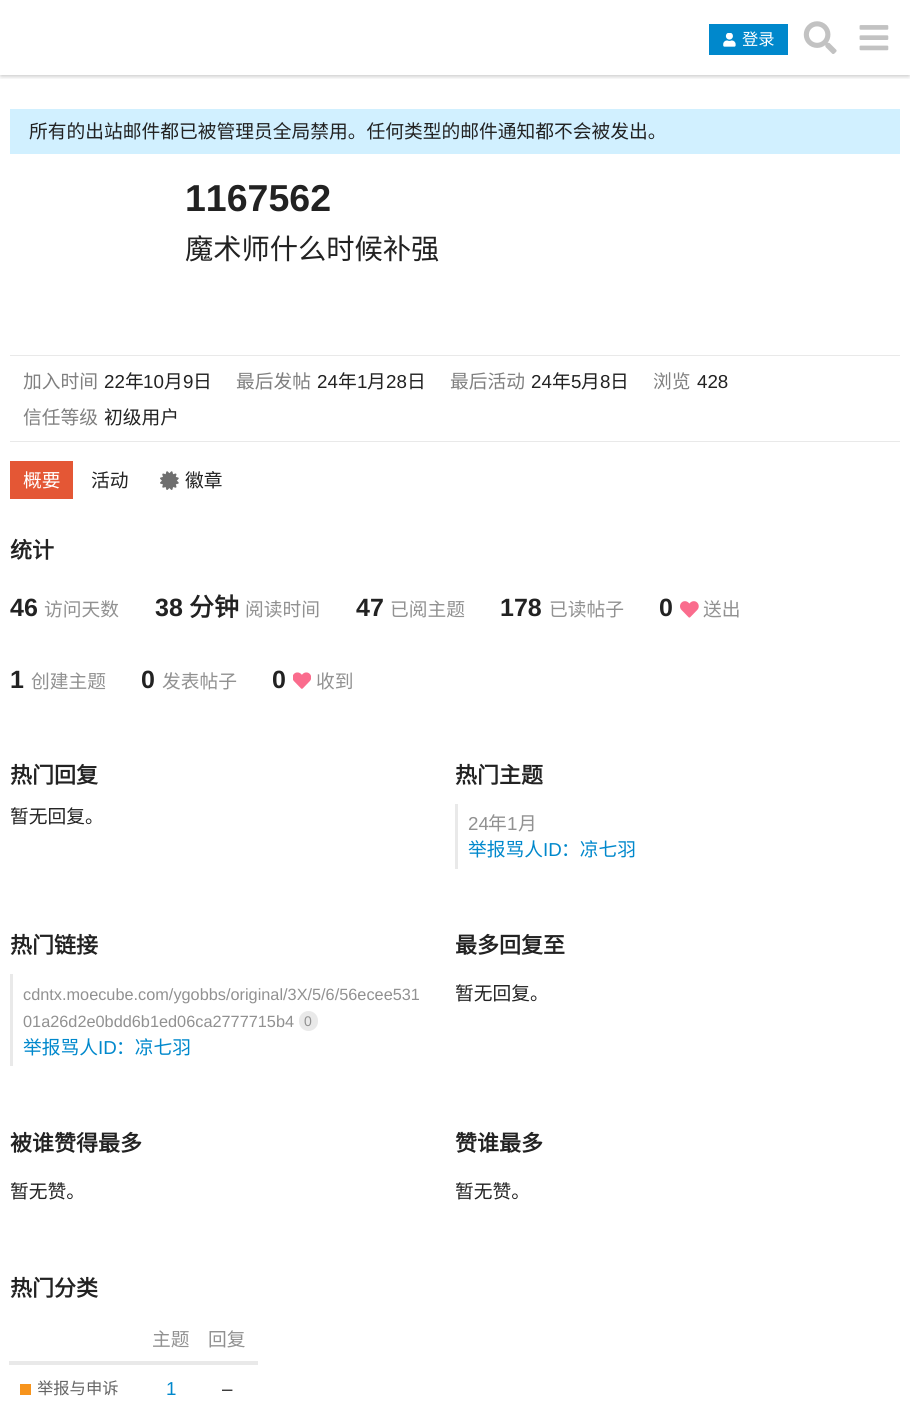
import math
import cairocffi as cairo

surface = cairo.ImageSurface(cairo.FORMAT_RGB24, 910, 1423)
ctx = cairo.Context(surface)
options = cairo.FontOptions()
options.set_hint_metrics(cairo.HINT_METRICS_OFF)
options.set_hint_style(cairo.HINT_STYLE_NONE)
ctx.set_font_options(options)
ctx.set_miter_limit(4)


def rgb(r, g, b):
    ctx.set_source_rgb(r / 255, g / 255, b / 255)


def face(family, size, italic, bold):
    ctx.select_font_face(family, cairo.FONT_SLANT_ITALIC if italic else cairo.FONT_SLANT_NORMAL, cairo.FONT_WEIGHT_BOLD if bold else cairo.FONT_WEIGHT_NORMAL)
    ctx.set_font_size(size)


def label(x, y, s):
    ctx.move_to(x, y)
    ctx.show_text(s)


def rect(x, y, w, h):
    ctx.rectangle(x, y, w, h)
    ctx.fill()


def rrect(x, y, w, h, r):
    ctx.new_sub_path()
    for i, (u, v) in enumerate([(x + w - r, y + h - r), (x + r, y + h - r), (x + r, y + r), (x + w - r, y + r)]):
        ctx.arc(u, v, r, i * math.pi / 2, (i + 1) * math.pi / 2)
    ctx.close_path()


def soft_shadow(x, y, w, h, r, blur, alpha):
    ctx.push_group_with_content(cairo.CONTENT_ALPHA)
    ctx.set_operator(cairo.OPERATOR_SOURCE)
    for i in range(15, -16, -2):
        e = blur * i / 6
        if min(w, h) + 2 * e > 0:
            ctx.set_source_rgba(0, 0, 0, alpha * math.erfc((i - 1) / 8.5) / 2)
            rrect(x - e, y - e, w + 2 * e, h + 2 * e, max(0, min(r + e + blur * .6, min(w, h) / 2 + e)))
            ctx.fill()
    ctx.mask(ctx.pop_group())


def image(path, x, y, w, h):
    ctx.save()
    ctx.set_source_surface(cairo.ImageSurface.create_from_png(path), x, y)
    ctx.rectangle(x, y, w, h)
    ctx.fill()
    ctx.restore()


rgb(255, 255, 255)
ctx.paint()
ctx.save()
ctx.rectangle(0, 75, 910, 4)
ctx.clip()
rgb(0, 0, 0)
soft_shadow(1, 4, 908, 72, 0, 2.5, 0.25)
ctx.restore()
rgb(0, 136, 204)
rect(709, 24, 79, 31)
image('image0.png', 723, 33, 13, 14)
face('Noto Sans CJK SC', 16.3, 0, 0)
rgb(255, 255, 255)
label(742, 45, '登录')
image('image1.png', 803, 21, 34, 33)
image('image2.png', 859, 25, 30, 26)
rgb(209, 240, 255)
rect(10, 109, 890, 45)
face('Noto Sans CJK SC', 18.75, 0, 0)
rgb(34, 34, 34)
label(29, 138, '所有的出站邮件都已被管理员全局禁用。任何类型的邮件通知都不会被发出。')
rgb(233, 233, 233)
rect(10, 441, 890, 1)
face('Liberation Sans', 37.5, 0, 1)
rgb(34, 34, 34)
label(185, 211, '1167562')
face('Noto Sans CJK SC', 28.25, 0, 0)
label(185, 259, '魔术师什么时候补强')
rgb(233, 233, 233)
rect(10, 355, 890, 1)
face('Noto Sans CJK SC', 18.75, 0, 0)
rgb(128, 128, 128)
label(23, 388, '加入时间')
face('Liberation Sans', 18.75, 0, 0)
rgb(34, 34, 34)
label(104, 388, '22')
face('Noto Sans CJK SC', 18.75, 0, 0)
label(125, 388, '年')
face('Liberation Sans', 18.75, 0, 0)
label(143, 388, '10')
face('Noto Sans CJK SC', 18.75, 0, 0)
label(164, 388, '月')
face('Liberation Sans', 18.75, 0, 0)
label(183, 388, '9')
face('Noto Sans CJK SC', 18.75, 0, 0)
label(193, 388, '日')
rgb(128, 128, 128)
label(236, 388, '最后发帖')
face('Liberation Sans', 18.75, 0, 0)
rgb(34, 34, 34)
label(317, 388, '24')
face('Noto Sans CJK SC', 18.75, 0, 0)
label(338, 388, '年')
face('Liberation Sans', 18.75, 0, 0)
label(357, 388, '1')
face('Noto Sans CJK SC', 18.75, 0, 0)
label(367, 388, '月')
face('Liberation Sans', 18.75, 0, 0)
label(386, 388, '28')
face('Noto Sans CJK SC', 18.75, 0, 0)
label(407, 388, '日')
rgb(128, 128, 128)
label(450, 388, '最后活动')
face('Liberation Sans', 18.75, 0, 0)
rgb(34, 34, 34)
label(531, 388, '24')
face('Noto Sans CJK SC', 18.75, 0, 0)
label(552, 388, '年')
face('Liberation Sans', 18.75, 0, 0)
label(571, 388, '5')
face('Noto Sans CJK SC', 18.75, 0, 0)
label(581, 388, '月')
face('Liberation Sans', 18.75, 0, 0)
label(600, 388, '8')
face('Noto Sans CJK SC', 18.75, 0, 0)
label(610, 388, '日')
rgb(128, 128, 128)
label(653, 388, '浏览')
face('Liberation Sans', 18.75, 0, 0)
rgb(34, 34, 34)
label(697, 388, '428')
face('Noto Sans CJK SC', 18.75, 0, 0)
rgb(128, 128, 128)
label(23, 424, '信任等级')
rgb(34, 34, 34)
label(104, 424, '初级用户')
rgb(228, 87, 53)
rect(10, 461, 63, 38)
rgb(255, 255, 255)
label(23, 487, '概要')
rgb(34, 34, 34)
label(91, 487, '活动')
image('image3.png', 160, 471, 19, 19)
label(185, 487, '徽章')
face('Noto Sans CJK SC', 22, 0, 1)
label(10, 558, '统计')
face('Liberation Sans', 25, 0, 1)
label(10, 616, '46')
face('Noto Sans CJK SC', 18.75, 0, 0)
rgb(145, 145, 145)
label(44, 616, '访问天数')
face('Liberation Sans', 25, 0, 1)
rgb(34, 34, 34)
label(155, 616, '38')
face('Noto Sans CJK SC', 25, 0, 1)
label(189, 616, '分钟')
face('Noto Sans CJK SC', 18.75, 0, 0)
rgb(145, 145, 145)
label(245, 616, '阅读时间')
face('Liberation Sans', 25, 0, 1)
rgb(34, 34, 34)
label(356, 616, '47')
face('Noto Sans CJK SC', 18.75, 0, 0)
rgb(145, 145, 145)
label(390, 616, '已阅主题')
face('Liberation Sans', 25, 0, 1)
rgb(34, 34, 34)
label(500, 616, '178')
face('Noto Sans CJK SC', 18.75, 0, 0)
rgb(145, 145, 145)
label(549, 616, '已读帖子')
face('Liberation Sans', 25, 0, 1)
rgb(34, 34, 34)
label(659, 616, '0')
image('image4.png', 680, 601, 19, 17)
face('Noto Sans CJK SC', 18.75, 0, 0)
rgb(145, 145, 145)
label(703, 616, '送出')
face('Liberation Sans', 25, 0, 1)
rgb(34, 34, 34)
label(10, 688, '1')
face('Noto Sans CJK SC', 18.75, 0, 0)
rgb(145, 145, 145)
label(31, 688, '创建主题')
face('Liberation Sans', 25, 0, 1)
rgb(34, 34, 34)
label(141, 688, '0')
face('Noto Sans CJK SC', 18.75, 0, 0)
rgb(145, 145, 145)
label(162, 688, '发表帖子')
face('Liberation Sans', 25, 0, 1)
rgb(34, 34, 34)
label(272, 688, '0')
image('image5.png', 293, 672, 18, 17)
face('Noto Sans CJK SC', 18.75, 0, 0)
rgb(145, 145, 145)
label(316, 688, '收到')
face('Noto Sans CJK SC', 22, 0, 1)
rgb(34, 34, 34)
label(10, 783, '热门回复')
face('Noto Sans CJK SC', 18.75, 0, 0)
label(10, 823, '暂无回复。')
face('Noto Sans CJK SC', 22, 0, 1)
label(455, 783, '热门主题')
rgb(233, 233, 233)
rect(455, 804, 3, 65)
face('Liberation Sans', 18.75, 0, 0)
rgb(145, 145, 145)
label(468, 830, '24')
face('Noto Sans CJK SC', 18.75, 0, 0)
label(488, 830, '年')
face('Liberation Sans', 18.75, 0, 0)
label(507, 830, '1')
face('Noto Sans CJK SC', 18.75, 0, 0)
label(518, 830, '月')
rgb(0, 136, 204)
label(468, 856, '举报骂人')
face('Liberation Sans', 18.75, 0, 0)
label(543, 856, 'ID')
face('Noto Sans CJK SC', 18.75, 0, 0)
label(561, 856, '：凉七羽')
face('Noto Sans CJK SC', 22, 0, 1)
rgb(34, 34, 34)
label(10, 953, '热门链接')
rgb(233, 233, 233)
rect(10, 974, 3, 92)
face('Liberation Sans', 16.3, 0, 0)
rgb(145, 145, 145)
label(23, 1000, 'cdntx.moecube.com/ygobbs/original/3X/5/6/56ecee531')
label(23, 1027, '01a26d2e0bdd6b1ed06ca2777715b4')
rgb(233, 233, 233)
rrect(299, 1011, 19, 20, 9.5)
ctx.fill()
face('Liberation Sans', 14, 0, 0)
rgb(145, 145, 145)
label(304, 1026, '0')
face('Noto Sans CJK SC', 18.75, 0, 0)
rgb(0, 136, 204)
label(23, 1054, '举报骂人')
face('Liberation Sans', 18.75, 0, 0)
label(98, 1054, 'ID')
face('Noto Sans CJK SC', 18.75, 0, 0)
label(116, 1054, '：凉七羽')
face('Noto Sans CJK SC', 22, 0, 1)
rgb(34, 34, 34)
label(455, 953, '最多回复至')
face('Noto Sans CJK SC', 18.75, 0, 0)
label(455, 1000, '暂无回复。')
face('Noto Sans CJK SC', 22, 0, 1)
label(10, 1151, '被谁赞得最多')
face('Noto Sans CJK SC', 18.75, 0, 0)
label(10, 1198, '暂无赞。')
face('Noto Sans CJK SC', 22, 0, 1)
label(455, 1151, '赞谁最多')
face('Noto Sans CJK SC', 18.75, 0, 0)
label(455, 1198, '暂无赞。')
face('Noto Sans CJK SC', 22, 0, 1)
label(10, 1296, '热门分类')
face('Noto Sans CJK SC', 18.75, 0, 0)
rgb(145, 145, 145)
label(152, 1346, '主题')
label(208, 1346, '回复')
rgb(233, 233, 233)
rect(9, 1361, 249, 4)
rgb(247, 148, 29)
rect(20, 1384, 11, 11)
ctx.save()
ctx.rectangle(38, 1379, 81, 22)
ctx.clip()
face('Noto Sans CJK SC', 16.3, 0, 0)
rgb(100, 100, 100)
label(37, 1394, '举报与申诉')
ctx.restore()
face('Liberation Sans', 18.75, 0, 0)
rgb(0, 136, 204)
label(166, 1395, '1')
rgb(34, 34, 34)
label(222, 1395, '–')
surface.write_to_png('render.png')
